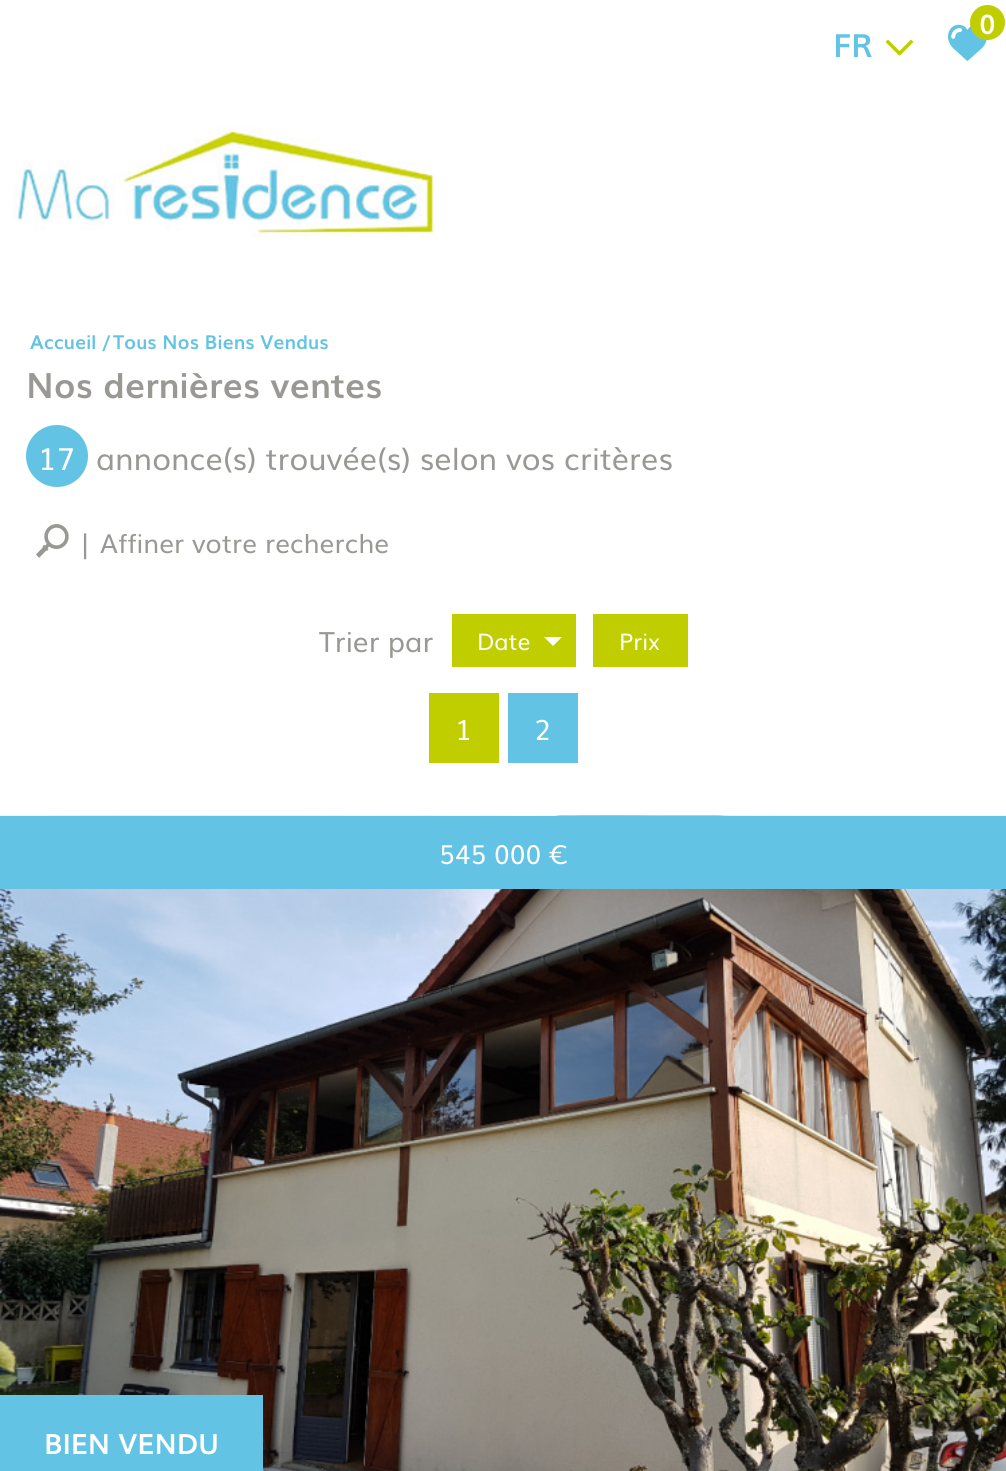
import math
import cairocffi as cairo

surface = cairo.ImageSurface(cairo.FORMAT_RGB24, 1006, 1471)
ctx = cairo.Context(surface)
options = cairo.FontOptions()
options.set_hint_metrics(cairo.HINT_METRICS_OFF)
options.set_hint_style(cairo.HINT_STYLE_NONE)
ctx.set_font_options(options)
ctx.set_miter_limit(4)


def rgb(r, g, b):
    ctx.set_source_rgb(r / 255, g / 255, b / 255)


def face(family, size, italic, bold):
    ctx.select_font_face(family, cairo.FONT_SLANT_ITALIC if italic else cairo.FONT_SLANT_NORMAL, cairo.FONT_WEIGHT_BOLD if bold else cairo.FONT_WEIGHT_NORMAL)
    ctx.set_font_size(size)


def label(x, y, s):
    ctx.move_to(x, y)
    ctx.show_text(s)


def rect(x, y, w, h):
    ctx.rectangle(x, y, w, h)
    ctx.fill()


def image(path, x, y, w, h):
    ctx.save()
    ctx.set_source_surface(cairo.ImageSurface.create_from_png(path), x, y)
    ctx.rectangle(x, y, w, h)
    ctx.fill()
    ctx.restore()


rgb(255, 255, 255)
ctx.paint()
image('image0.png', 947, 24, 40, 38)
rgb(192, 206, 0)
ctx.arc(987.5, 22.5, 17.5, 0, 2 * math.pi)
ctx.fill()
face('Muli', 27, 0, 1)
rgb(255, 255, 255)
label(979, 34, '0')
face('Muli', 32, 0, 1)
rgb(99, 195, 228)
label(833, 57, 'FR')
rgb(192, 206, 0)
ctx.new_path()
ctx.move_to(888, 39.5)
ctx.line_to(901.5, 53)
ctx.line_to(899, 55.5)
ctx.line_to(885.5, 42)
ctx.close_path()
ctx.fill()
ctx.new_path()
ctx.move_to(897.5, 53)
ctx.line_to(911, 39.5)
ctx.line_to(913.5, 42)
ctx.line_to(900, 55.5)
ctx.close_path()
ctx.fill()
image('image1.png', 13, 126, 422, 112)
face('Muli', 19.25, 0, 1)
rgb(99, 195, 228)
label(30, 349, 'Accueil')
label(103, 349, '/')
label(113, 349, 'Tous Nos Biens Vendus')
face('Muli', 35, 0, 1)
rgb(153, 152, 148)
label(26, 398, 'Nos dernières ventes')
rgb(99, 195, 228)
ctx.new_path()
ctx.arc(57, 456, 31, 0, 2 * math.pi)
ctx.fill()
face('Muli', 30.6, 0, 0)
rgb(255, 255, 255)
label(38, 470, '17')
rgb(153, 152, 148)
label(96, 470, 'annonce(s) trouvée(s) selon vos critères')
image('image2.png', 36, 524, 33, 34)
face('Muli', 26.25, 0, 0)
label(79, 553, '|')
label(100, 553, 'Affiner votre recherche')
face('Muli', 28, 0, 0)
label(319, 652, 'Trier par')
rgb(192, 206, 0)
rect(452, 614, 124, 53)
face('Muli', 23, 0, 0)
rgb(255, 255, 255)
label(477, 650, 'Date')
ctx.new_path()
ctx.move_to(544, 637)
ctx.line_to(562, 637)
ctx.line_to(553, 646)
ctx.close_path()
ctx.fill()
rgb(192, 206, 0)
rect(593, 614, 95, 53)
rgb(255, 255, 255)
label(619, 650, 'Prix')
rgb(192, 206, 0)
rect(429, 693, 70, 70)
face('Muli', 28, 0, 0)
rgb(255, 255, 255)
label(455, 740, '1')
rgb(99, 195, 228)
rect(508, 693, 70, 70)
rgb(255, 255, 255)
label(534, 740, '2')
image('image3.png', 0, 815, 1006, 656)
rgb(99, 195, 228)
rect(0, 816, 1006, 73)
face('Muli', 26.25, 0, 0)
rgb(255, 255, 255)
label(439, 864, '545 000 €')
rgb(99, 195, 228)
rect(0, 1395, 263, 76)
face('Muli', 28, 0, 1)
rgb(255, 255, 255)
label(44, 1454, 'BIEN VENDU')
surface.write_to_png('render.png')
